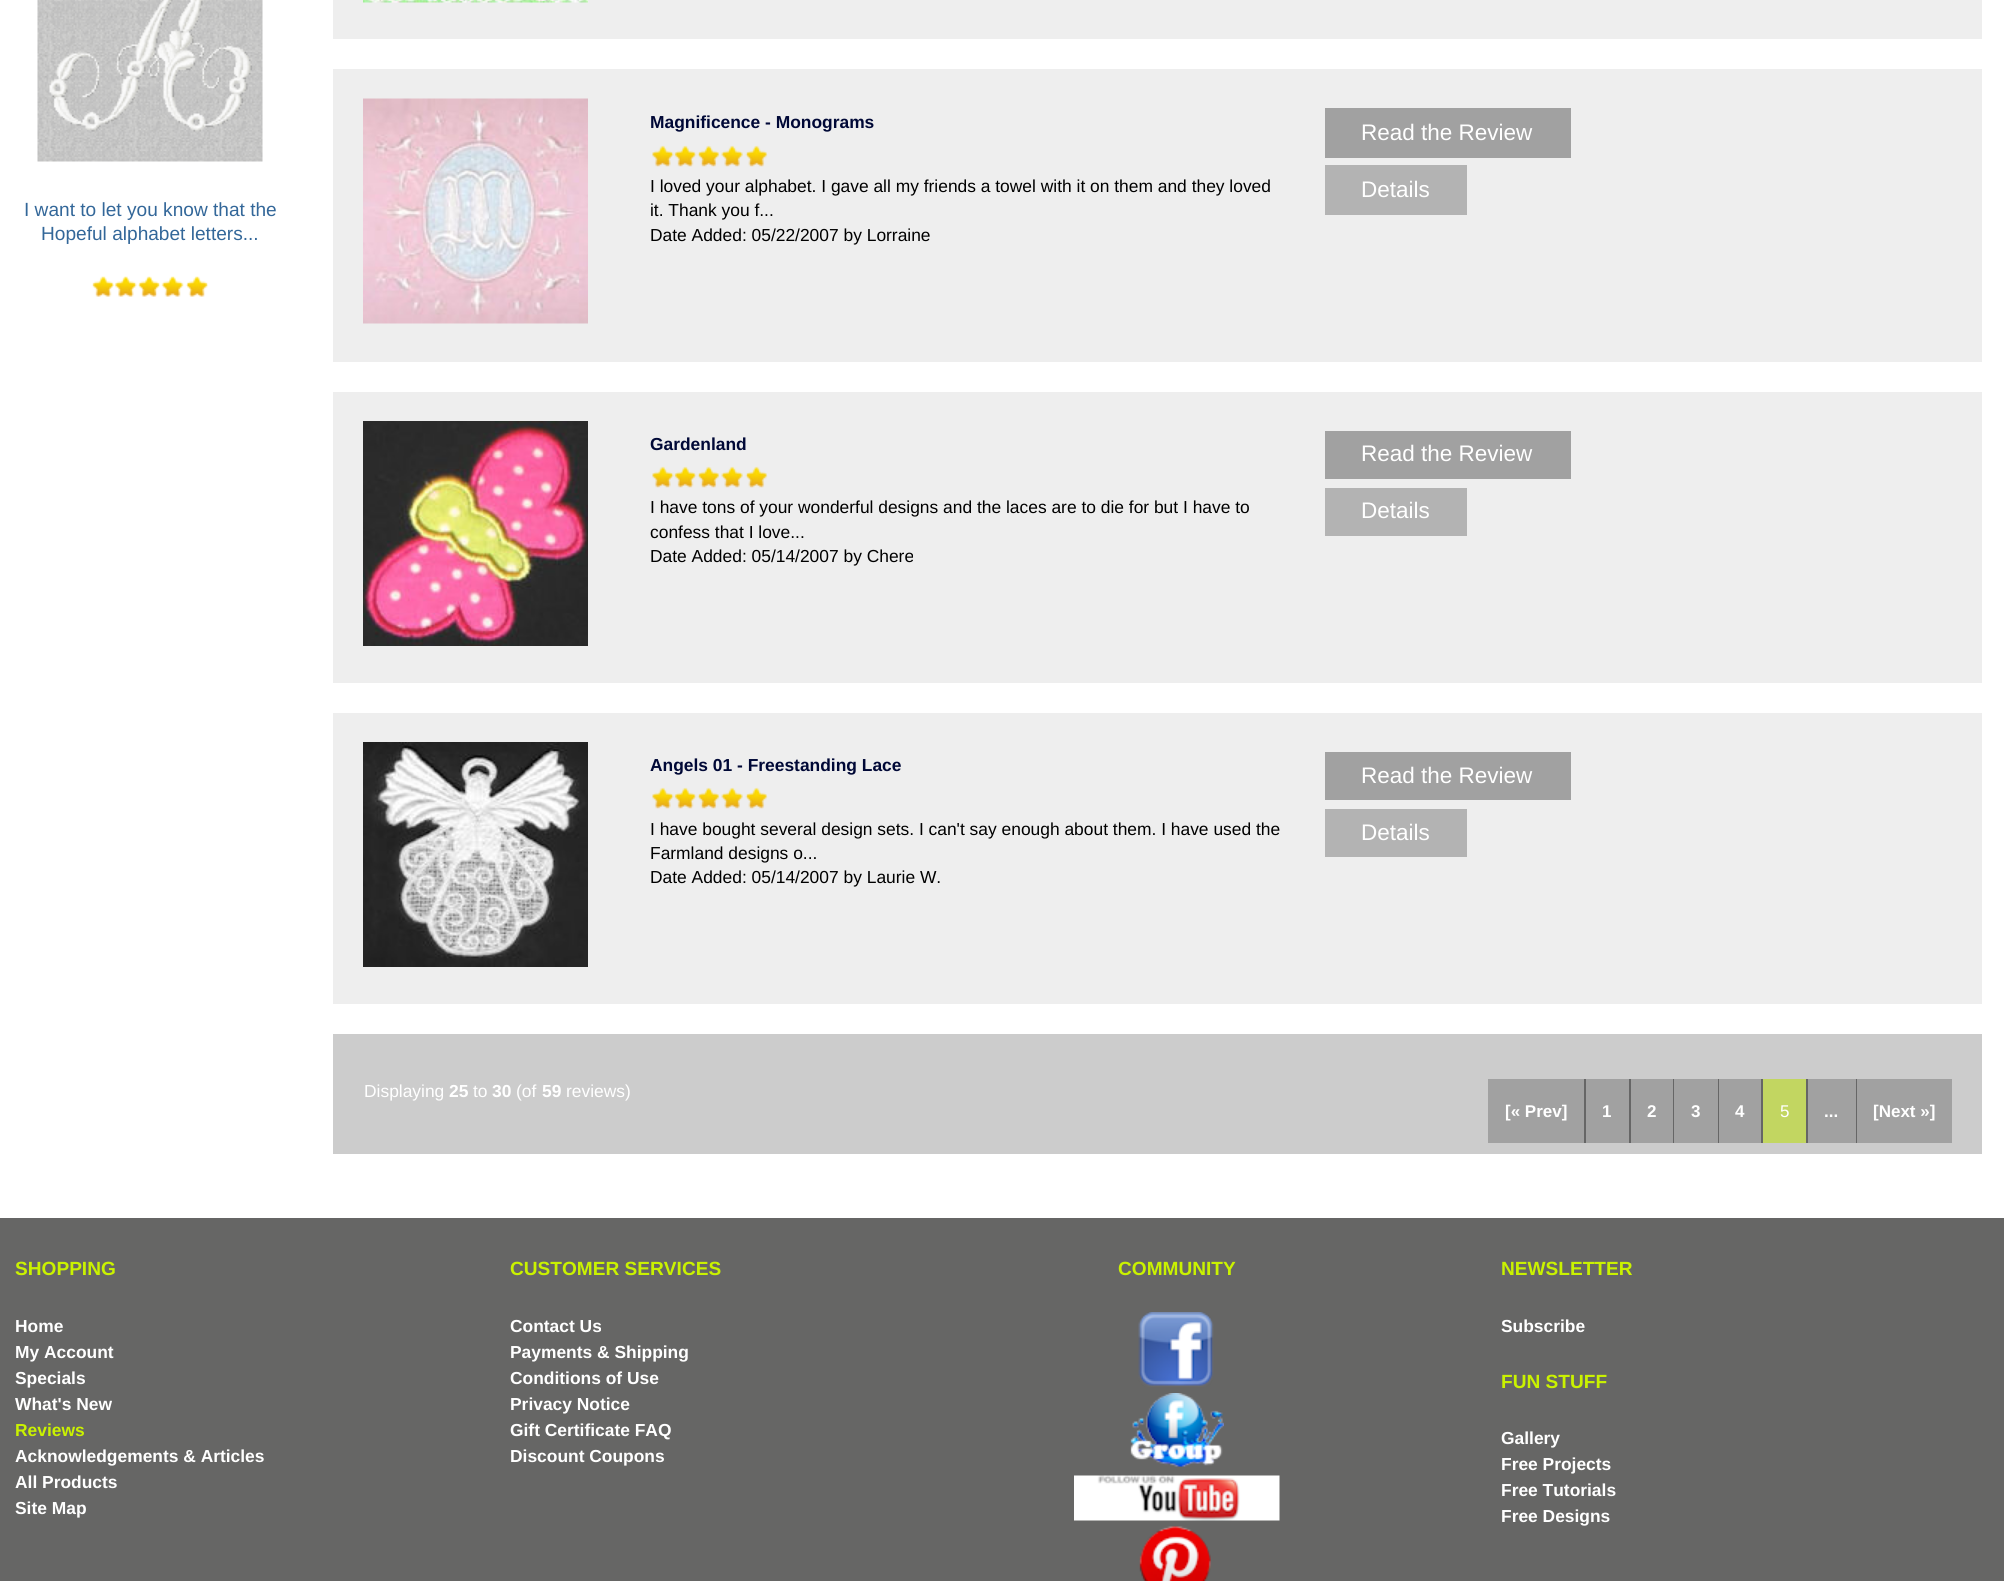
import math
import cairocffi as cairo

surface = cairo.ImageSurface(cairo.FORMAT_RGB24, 2004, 1581)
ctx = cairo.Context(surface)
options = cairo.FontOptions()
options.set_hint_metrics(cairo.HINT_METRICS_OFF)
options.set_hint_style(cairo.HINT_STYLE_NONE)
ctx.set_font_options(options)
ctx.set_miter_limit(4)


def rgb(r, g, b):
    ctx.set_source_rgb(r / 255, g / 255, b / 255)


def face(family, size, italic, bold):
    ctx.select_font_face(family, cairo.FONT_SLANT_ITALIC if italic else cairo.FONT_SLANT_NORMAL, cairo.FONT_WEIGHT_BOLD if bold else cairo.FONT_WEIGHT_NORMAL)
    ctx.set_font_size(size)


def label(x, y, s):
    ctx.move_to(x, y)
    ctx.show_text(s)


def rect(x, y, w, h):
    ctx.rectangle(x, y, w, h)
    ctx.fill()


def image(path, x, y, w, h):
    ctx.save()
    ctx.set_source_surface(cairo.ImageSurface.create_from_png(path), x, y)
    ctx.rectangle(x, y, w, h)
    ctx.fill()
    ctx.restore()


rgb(255, 255, 255)
ctx.paint()
image('image0.png', 37, 0, 226, 162)
face('Liberation Sans', 19.1, 0, 0)
rgb(51, 103, 153)
label(24, 216, 'I want to let you know that the')
label(41, 240, 'Hopeful alphabet letters...')
image('image1.png', 92, 276, 117, 21)
rgb(238, 238, 238)
rect(333, 0, 1649, 39)
image('image2.png', 363, 0, 225, 3)
rect(333, 69, 1649, 293)
image('image3.png', 363, 98, 225, 226)
face('Liberation Sans', 17.4, 0, 1)
rgb(0, 8, 54)
label(650, 128, 'Magnificence - Monograms')
image('image4.png', 652, 145, 116, 22)
face('Liberation Sans', 17.4, 0, 0)
rgb(0, 0, 0)
label(650, 192, 'I loved your alphabet. I gave all my friends a towel with it on them and they loved')
label(650, 216, 'it. Thank you f...')
label(650, 241, 'Date Added: 05/22/2007 by Lorraine')
rgb(161, 161, 161)
rect(1325, 108, 246, 50)
face('Liberation Sans', 22.5, 0, 0)
rgb(255, 255, 255)
label(1361, 140, 'Read the Review')
rgb(179, 179, 179)
rect(1325, 165, 142, 50)
rgb(255, 255, 255)
label(1361, 197, 'Details')
rgb(238, 238, 238)
rect(333, 392, 1649, 291)
image('image5.png', 363, 421, 225, 225)
face('Liberation Sans', 17.4, 0, 1)
rgb(0, 8, 54)
label(650, 450, 'Gardenland')
image('image4.png', 652, 466, 116, 22)
face('Liberation Sans', 17.4, 0, 0)
rgb(0, 0, 0)
label(650, 513, 'I have tons of your wonderful designs and the laces are to die for but I have to')
label(650, 538, 'confess that I love...')
label(650, 562, 'Date Added: 05/14/2007 by Chere')
rgb(161, 161, 161)
rect(1325, 431, 246, 48)
face('Liberation Sans', 22.5, 0, 0)
rgb(255, 255, 255)
label(1361, 461, 'Read the Review')
rgb(179, 179, 179)
rect(1325, 488, 142, 48)
rgb(255, 255, 255)
label(1361, 518, 'Details')
rgb(238, 238, 238)
rect(333, 713, 1649, 291)
image('image6.png', 363, 742, 225, 225)
face('Liberation Sans', 17.4, 0, 1)
rgb(0, 8, 54)
label(650, 771, 'Angels 01 - Freestanding Lace')
image('image4.png', 652, 787, 116, 22)
face('Liberation Sans', 17.4, 0, 0)
rgb(0, 0, 0)
label(650, 835, 'I have bought several design sets. I can\'t say enough about them. I have used the')
label(650, 859, 'Farmland designs o...')
label(650, 883, 'Date Added: 05/14/2007 by Laurie W.')
rgb(161, 161, 161)
rect(1325, 752, 246, 48)
face('Liberation Sans', 22.5, 0, 0)
rgb(255, 255, 255)
label(1361, 783, 'Read the Review')
rgb(179, 179, 179)
rect(1325, 809, 142, 48)
rgb(255, 255, 255)
label(1361, 840, 'Details')
rgb(204, 204, 204)
rect(333, 1034, 1649, 120)
face('Liberation Sans', 17.4, 0, 0)
rgb(255, 255, 255)
label(364, 1097, 'Displaying')
face('Liberation Sans', 17.4, 0, 1)
label(449, 1097, '25')
face('Liberation Sans', 17.4, 0, 0)
label(473, 1097, 'to')
face('Liberation Sans', 17.4, 0, 1)
label(492, 1097, '30')
face('Liberation Sans', 17.4, 0, 0)
label(516, 1097, '(of')
face('Liberation Sans', 17.4, 0, 1)
label(542, 1097, '59')
face('Liberation Sans', 17.4, 0, 0)
label(566, 1097, 'reviews)')
rgb(161, 161, 161)
rect(1488, 1079, 96, 64)
face('Liberation Sans', 17, 0, 1)
rgb(255, 255, 255)
label(1505, 1117, '[« Prev]')
rgb(102, 102, 102)
rect(1584, 1079, 2, 64)
rgb(161, 161, 161)
rect(1586, 1079, 43, 64)
rgb(255, 255, 255)
label(1602, 1117, '1')
rgb(102, 102, 102)
rect(1629, 1079, 2, 64)
rgb(161, 161, 161)
rect(1631, 1079, 42, 64)
rgb(255, 255, 255)
label(1647, 1117, '2')
rgb(102, 102, 102)
rect(1673, 1079, 1, 64)
rgb(161, 161, 161)
rect(1674, 1079, 44, 64)
rgb(255, 255, 255)
label(1691, 1117, '3')
rgb(102, 102, 102)
rect(1718, 1079, 1, 64)
rgb(161, 161, 161)
rect(1719, 1079, 42, 64)
rgb(255, 255, 255)
label(1735, 1117, '4')
rgb(194, 214, 97)
rect(1763, 1079, 43, 64)
rgb(102, 102, 102)
rect(1761, 1079, 2, 64)
face('Liberation Sans', 17, 0, 0)
rgb(255, 255, 255)
label(1780, 1117, '5')
rgb(102, 102, 102)
rect(1806, 1079, 2, 64)
rgb(161, 161, 161)
rect(1808, 1079, 48, 64)
face('Liberation Sans', 17, 0, 1)
rgb(255, 255, 255)
label(1824, 1117, '...')
rgb(102, 102, 102)
rect(1856, 1079, 1, 64)
rgb(161, 161, 161)
rect(1857, 1079, 95, 64)
rgb(255, 255, 255)
label(1873, 1117, '[Next »]')
rgb(102, 102, 101)
rect(0, 1218, 2004, 363)
face('Liberation Sans', 19.1, 0, 1)
rgb(202, 242, 0)
label(15, 1275, 'SHOPPING')
face('Liberation Sans', 17.4, 0, 1)
rgb(255, 255, 255)
label(15, 1332, 'Home')
label(15, 1358, 'My Account')
label(15, 1384, 'Specials')
label(15, 1410, 'What\'s New')
rgb(202, 242, 0)
label(15, 1436, 'Reviews')
rgb(255, 255, 255)
label(15, 1462, 'Acknowledgements & Articles')
label(15, 1488, 'All Products')
label(15, 1514, 'Site Map')
face('Liberation Sans', 19.1, 0, 1)
rgb(202, 242, 0)
label(510, 1275, 'CUSTOMER SERVICES')
face('Liberation Sans', 17.4, 0, 1)
rgb(255, 255, 255)
label(510, 1332, 'Contact Us')
label(510, 1358, 'Payments & Shipping')
label(510, 1384, 'Conditions of Use')
label(510, 1410, 'Privacy Notice')
label(510, 1436, 'Gift Certificate FAQ')
label(510, 1462, 'Discount Coupons')
face('Liberation Sans', 19.1, 0, 1)
rgb(202, 242, 0)
label(1118, 1275, 'COMMUNITY')
image('image7.png', 1138, 1312, 76, 75)
image('image8.png', 1130, 1393, 94, 74)
image('image9.png', 1074, 1475, 206, 46)
image('image10.png', 1139, 1526, 72, 55)
label(1501, 1275, 'NEWSLETTER')
face('Liberation Sans', 17.4, 0, 1)
rgb(255, 255, 255)
label(1501, 1332, 'Subscribe')
face('Liberation Sans', 19.1, 0, 1)
rgb(202, 242, 0)
label(1501, 1388, 'FUN STUFF')
face('Liberation Sans', 17.4, 0, 1)
rgb(255, 255, 255)
label(1501, 1444, 'Gallery')
label(1501, 1470, 'Free Projects')
label(1501, 1496, 'Free Tutorials')
label(1501, 1522, 'Free Designs')
surface.write_to_png('render.png')
